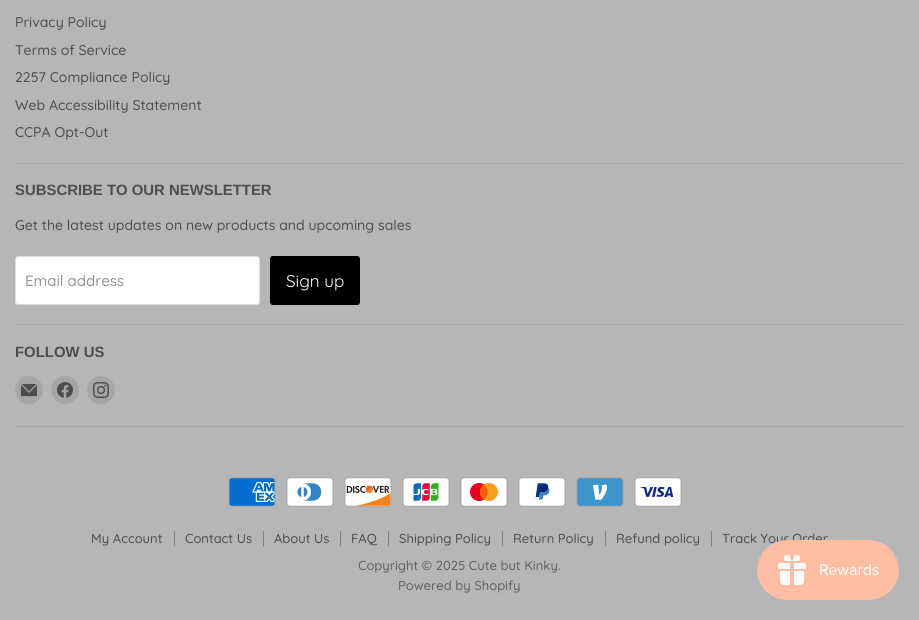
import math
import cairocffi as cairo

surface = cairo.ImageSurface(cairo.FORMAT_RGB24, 919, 620)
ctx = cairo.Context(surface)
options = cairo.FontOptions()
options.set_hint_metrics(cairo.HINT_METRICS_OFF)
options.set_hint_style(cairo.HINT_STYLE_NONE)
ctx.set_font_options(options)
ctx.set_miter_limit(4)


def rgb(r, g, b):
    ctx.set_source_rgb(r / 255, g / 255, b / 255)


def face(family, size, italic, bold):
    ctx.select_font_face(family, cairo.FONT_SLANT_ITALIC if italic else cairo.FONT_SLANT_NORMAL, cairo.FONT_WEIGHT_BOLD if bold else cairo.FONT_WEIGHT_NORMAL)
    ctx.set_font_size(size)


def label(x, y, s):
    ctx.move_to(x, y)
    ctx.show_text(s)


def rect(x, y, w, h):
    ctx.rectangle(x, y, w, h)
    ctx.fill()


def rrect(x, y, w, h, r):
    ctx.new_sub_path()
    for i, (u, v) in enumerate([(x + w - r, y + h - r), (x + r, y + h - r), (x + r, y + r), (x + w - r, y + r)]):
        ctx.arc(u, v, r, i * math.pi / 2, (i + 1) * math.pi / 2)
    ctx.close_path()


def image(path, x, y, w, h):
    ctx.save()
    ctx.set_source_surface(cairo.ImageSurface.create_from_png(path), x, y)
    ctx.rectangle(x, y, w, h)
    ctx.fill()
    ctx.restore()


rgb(182, 182, 182)
ctx.paint()
rgb(166, 166, 166)
rect(15, 163, 889, 1)
face('Quicksand Medium', 14.05, 0, 0)
rgb(77, 77, 77)
label(15, 27, 'Privacy Policy')
label(15, 55, 'Terms of Service')
label(15, 82, '2257 Compliance Policy')
label(15, 110, 'Web Accessibility Statement')
label(15, 137, 'CCPA Opt-Out')
rgb(166, 166, 166)
rect(15, 324, 889, 1)
face('Liberation Sans', 14.9, 0, 1)
rgb(77, 77, 77)
label(15, 195, 'SUBSCRIBE TO OUR NEWSLETTER')
face('Quicksand Medium', 14.05, 0, 0)
label(15, 230, 'Get the latest updates on new products and upcoming sales')
rgb(255, 255, 255)
rrect(15.5, 256.5, 244, 48, 2.5)
ctx.fill_preserve()
rgb(221, 221, 221)
ctx.set_line_width(1)
ctx.stroke()
face('Quicksand Medium', 15, 0, 0)
rgb(148, 148, 148)
label(25, 286, 'Email address')
rgb(0, 0, 0)
rrect(270.5, 256.5, 89, 48, 2.5)
ctx.fill_preserve()
ctx.stroke()
face('Quicksand', 17, 0, 0)
rgb(255, 255, 255)
label(286, 287, 'Sign up')
rgb(166, 166, 166)
rect(15, 426, 889, 1)
face('Liberation Sans', 14.9, 0, 1)
rgb(77, 77, 77)
label(15, 357, 'FOLLOW US')
rgb(166, 166, 166)
ctx.new_path()
ctx.arc(29, 390, 14, 0, 2 * math.pi)
ctx.fill()
image('image0.png', 21, 384, 16, 13)
ctx.arc(65, 390, 14, 0, 2 * math.pi)
ctx.fill()
image('image1.png', 57, 382, 16, 16)
ctx.arc(101, 390, 14, 0, 2 * math.pi)
ctx.fill()
image('image2.png', 93, 382, 16, 16)
image('image3.png', 228, 477, 48, 30)
image('image4.png', 286, 477, 48, 30)
image('image5.png', 344, 477, 48, 30)
image('image6.png', 402, 477, 48, 30)
image('image7.png', 460, 477, 48, 30)
image('image8.png', 518, 477, 48, 30)
image('image9.png', 576, 477, 48, 30)
image('image10.png', 634, 477, 48, 30)
rgb(130, 130, 130)
rect(174, 531, 1, 15)
face('Quicksand Medium', 13, 0, 0)
rgb(77, 77, 77)
label(91, 543, 'My Account')
rgb(130, 130, 130)
rect(263, 531, 1, 15)
rgb(77, 77, 77)
label(185, 543, 'Contact Us')
rgb(130, 130, 130)
rect(340, 531, 1, 15)
rgb(77, 77, 77)
label(274, 543, 'About Us')
rgb(130, 130, 130)
rect(388, 531, 1, 15)
rgb(77, 77, 77)
label(351, 543, 'FAQ')
rgb(130, 130, 130)
rect(502, 531, 1, 15)
rgb(77, 77, 77)
label(399, 543, 'Shipping Policy')
rgb(130, 130, 130)
rect(605, 531, 1, 15)
rgb(77, 77, 77)
label(513, 543, 'Return Policy')
rgb(130, 130, 130)
rect(711, 531, 1, 15)
rgb(77, 77, 77)
label(616, 543, 'Refund policy')
label(722, 543, 'Track Your Order')
rgb(98, 98, 98)
label(358, 570, 'Copyright © 2025 Cute but Kinky.')
label(398, 590, 'Powered by Shopify')
image('image11.png', 757, 540, 142, 60)
surface.write_to_png('render.png')
